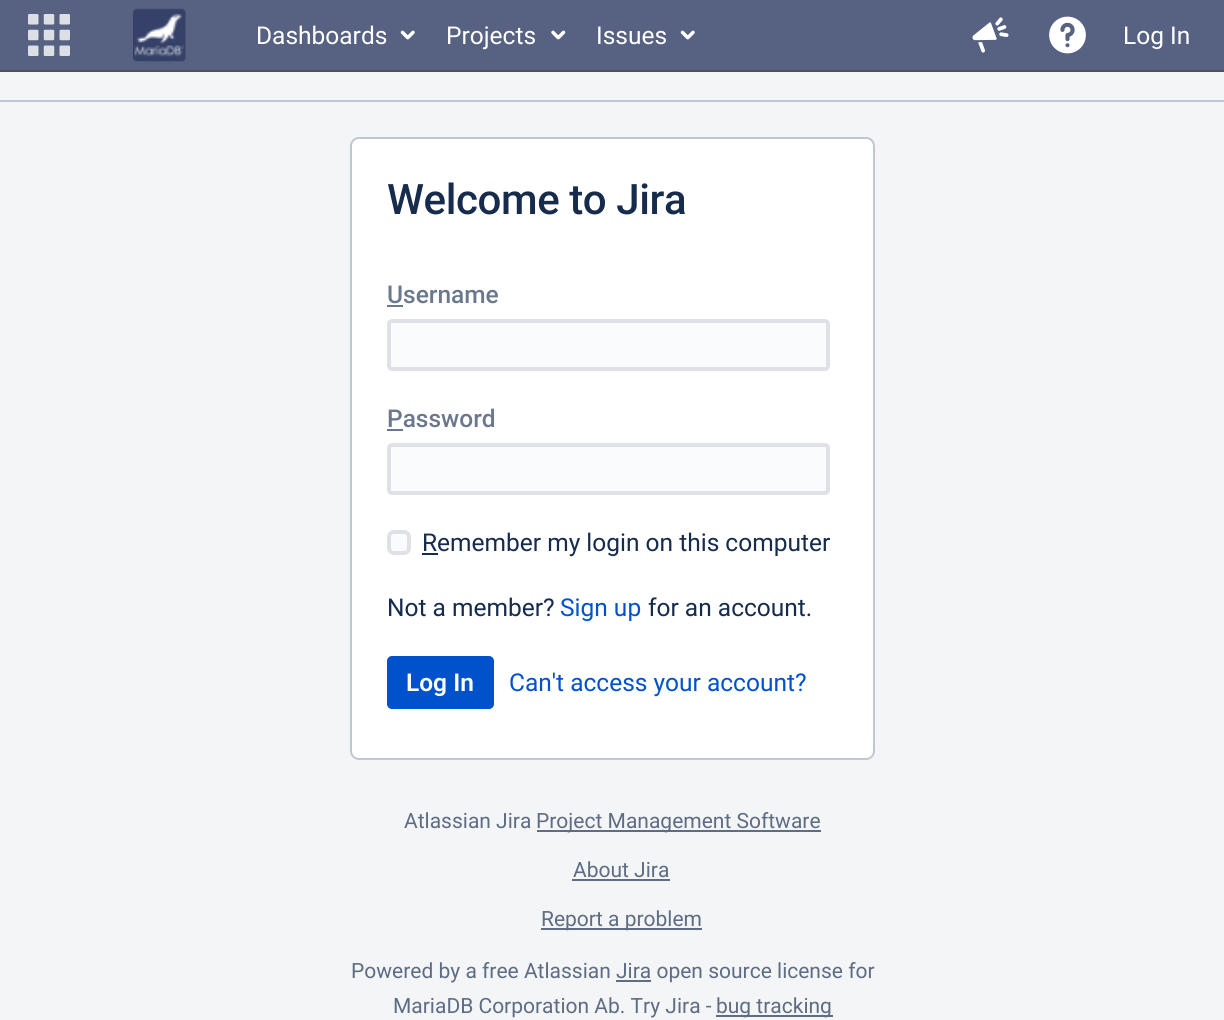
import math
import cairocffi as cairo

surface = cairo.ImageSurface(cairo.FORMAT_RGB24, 1224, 1020)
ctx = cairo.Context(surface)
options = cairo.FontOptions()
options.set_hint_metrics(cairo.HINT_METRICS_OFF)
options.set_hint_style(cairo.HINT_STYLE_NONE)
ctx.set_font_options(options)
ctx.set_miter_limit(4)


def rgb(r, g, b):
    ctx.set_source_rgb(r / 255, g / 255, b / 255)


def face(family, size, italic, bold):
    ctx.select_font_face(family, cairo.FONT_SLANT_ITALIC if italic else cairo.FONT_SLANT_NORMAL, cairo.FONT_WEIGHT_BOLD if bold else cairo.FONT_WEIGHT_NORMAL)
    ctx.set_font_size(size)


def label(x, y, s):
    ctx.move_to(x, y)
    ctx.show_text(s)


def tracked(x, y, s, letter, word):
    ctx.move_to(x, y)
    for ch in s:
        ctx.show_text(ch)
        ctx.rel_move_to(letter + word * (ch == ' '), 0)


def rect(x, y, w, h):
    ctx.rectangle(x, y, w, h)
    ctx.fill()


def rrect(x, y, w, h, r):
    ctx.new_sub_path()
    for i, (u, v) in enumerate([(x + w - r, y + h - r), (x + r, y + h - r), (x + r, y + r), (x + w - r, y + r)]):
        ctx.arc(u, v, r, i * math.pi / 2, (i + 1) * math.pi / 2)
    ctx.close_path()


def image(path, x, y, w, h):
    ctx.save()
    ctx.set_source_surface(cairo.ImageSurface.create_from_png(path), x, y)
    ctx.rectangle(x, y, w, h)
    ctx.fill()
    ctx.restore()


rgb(244, 245, 247)
ctx.paint()
rgb(87, 97, 129)
rect(0, 0, 1224, 70)
rgb(82, 82, 84)
rect(0, 70, 1224, 2)
image('image0.png', 28, 14, 42, 42)
image('image1.png', 133, 8, 53, 54)
face('Roboto', 24.5, 0, 0)
rgb(255, 255, 255)
label(256, 44, 'Dashboards')
image('image2.png', 400, 30, 15, 10)
label(446, 44, 'Projects')
image('image3.png', 551, 30, 15, 10)
label(596, 44, 'Issues')
image('image2.png', 680, 30, 15, 10)
image('image4.png', 972, 17, 37, 36)
image('image5.png', 1049, 16, 37, 38)
label(1123, 44, 'Log In')
rgb(193, 199, 208)
rect(0, 100, 1224, 2)
rgb(255, 255, 255)
rrect(351, 138, 523, 621, 8)
ctx.fill_preserve()
rgb(193, 199, 208)
ctx.stroke()
face('Roboto Medium', 42, 0, 0)
rgb(23, 43, 77)
tracked(387, 214, 'Welcome to Jira', -0.4, 0)
face('Roboto Medium', 24.5, 0, 0)
rgb(107, 119, 140)
label(387, 303, 'Username')
rect(387, 305, 16, 2)
rgb(250, 251, 252)
rrect(389, 321, 439, 48, 3)
ctx.fill_preserve()
rgb(223, 225, 230)
ctx.set_line_width(4)
ctx.stroke()
rgb(107, 119, 140)
label(387, 427, 'Password')
rect(387, 429, 16, 2)
rgb(250, 251, 252)
rrect(389, 445, 439, 48, 3)
ctx.fill_preserve()
rgb(223, 225, 230)
ctx.stroke()
rgb(250, 251, 252)
rrect(389, 532, 20, 21, 5)
ctx.fill_preserve()
rgb(223, 225, 230)
ctx.stroke()
rgb(23, 43, 77)
rect(422, 553, 16, 2)
face('Roboto', 24.5, 0, 0)
label(422, 551, 'Remember my login on this computer')
label(387, 616, 'Not a member?')
rgb(0, 82, 204)
label(560, 616, 'Sign up')
rgb(23, 43, 77)
label(648, 616, 'for an account.')
rgb(0, 82, 204)
rrect(387, 656, 107, 53, 5)
ctx.fill()
face('Roboto SemiBold', 24.5, 0, 0)
rgb(255, 255, 255)
label(406, 691, 'Log In')
face('Roboto', 24.5, 0, 0)
rgb(0, 82, 204)
label(509, 691, 'Can\'t access your account?')
face('Roboto', 21, 0, 0)
rgb(94, 108, 132)
label(404, 828, 'Atlassian Jira')
rect(537, 830, 284, 2)
label(536, 828, 'Project Management Software')
label(573, 877, 'About Jira')
rect(572, 879, 98, 2)
rect(541, 928, 161, 2)
label(541, 926, 'Report a problem')
label(351, 978, 'Powered by a free Atlassian Jira open source license for')
rect(616, 980, 35, 2)
label(393, 1013, 'MariaDB Corporation Ab. Try Jira -')
rect(716, 1015, 117, 2)
label(716, 1013, 'bug tracking')
surface.write_to_png('render.png')
